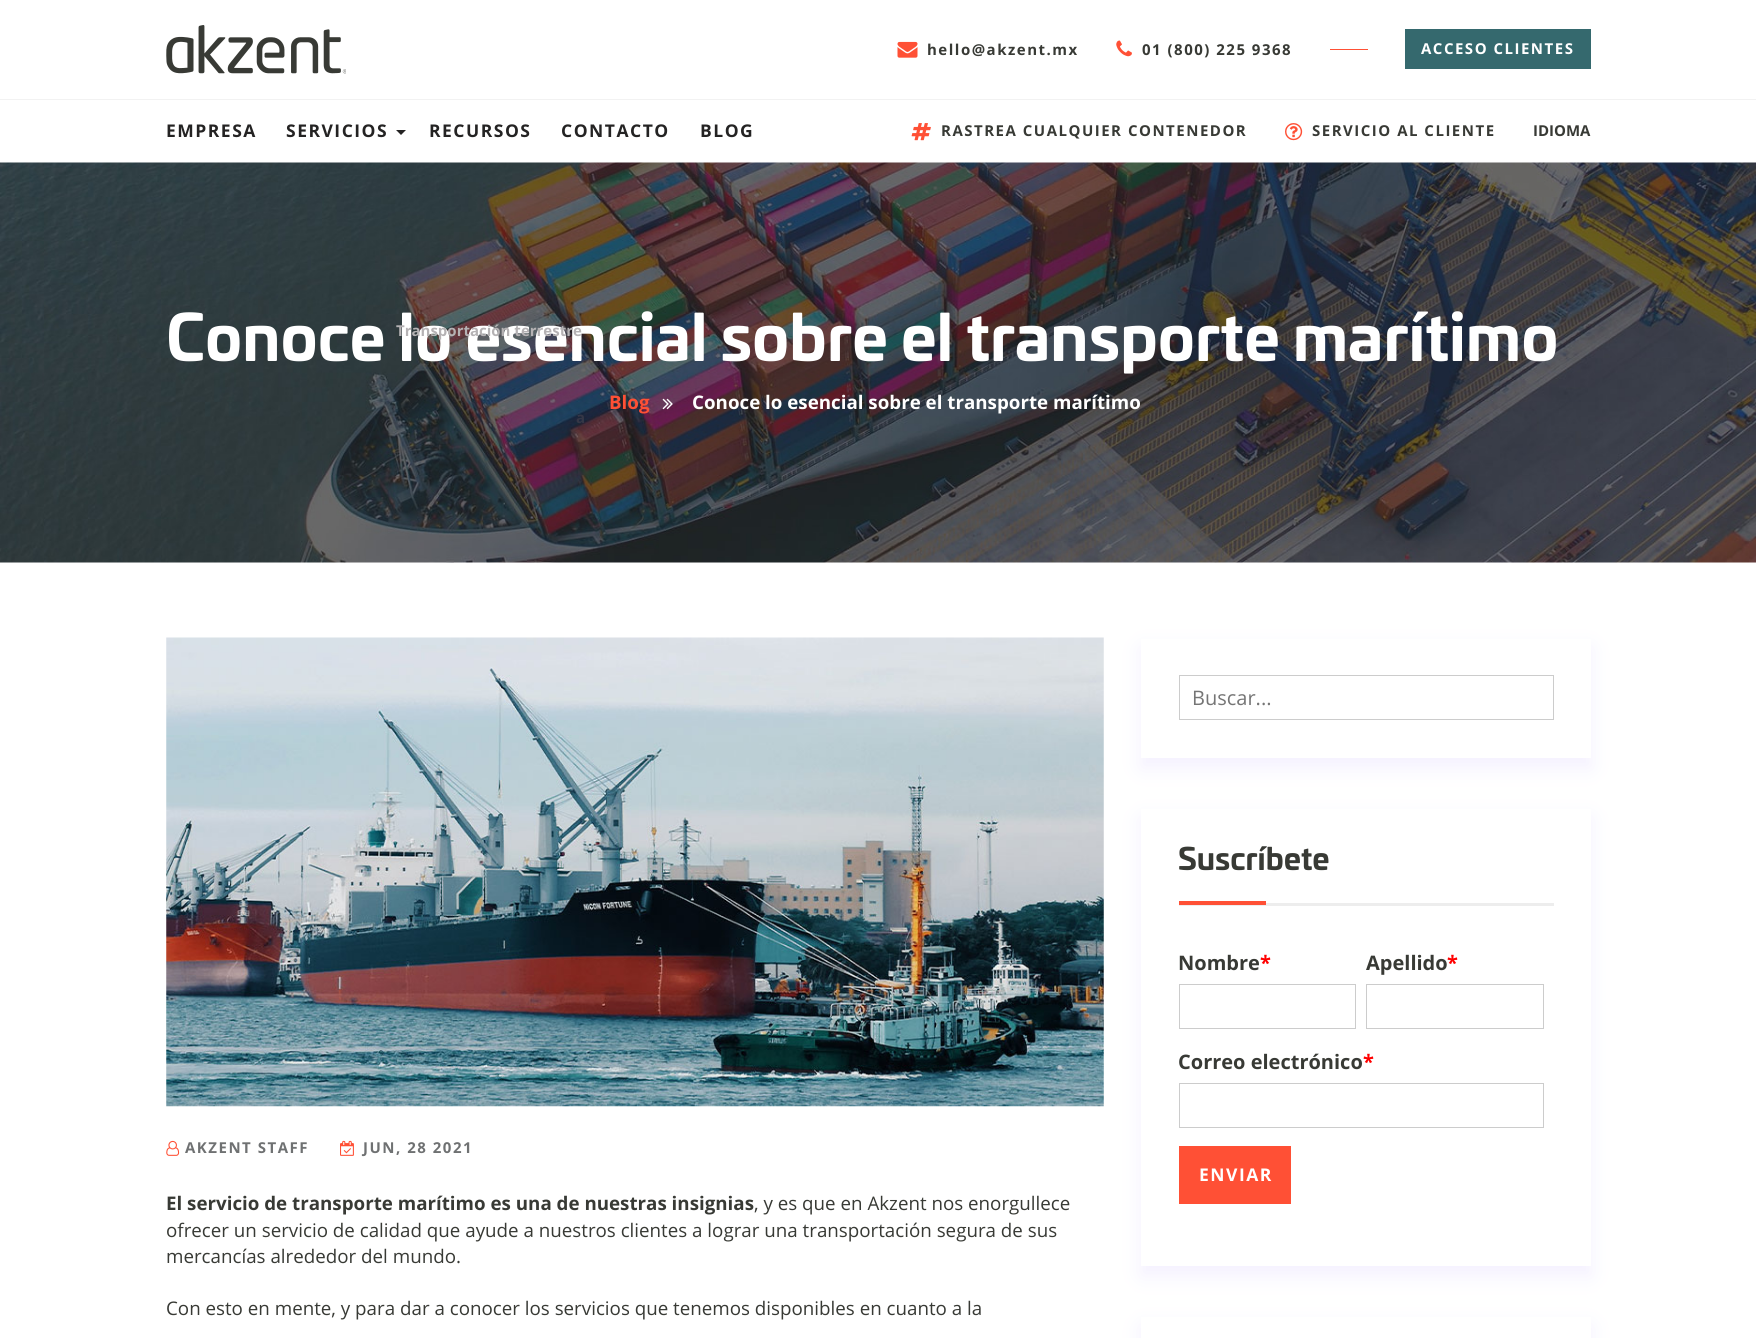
import math
import cairocffi as cairo

surface = cairo.ImageSurface(cairo.FORMAT_RGB24, 1756, 1338)
ctx = cairo.Context(surface)
options = cairo.FontOptions()
options.set_hint_metrics(cairo.HINT_METRICS_OFF)
options.set_hint_style(cairo.HINT_STYLE_NONE)
ctx.set_font_options(options)
ctx.set_miter_limit(4)


def rgb(r, g, b):
    ctx.set_source_rgb(r / 255, g / 255, b / 255)


def face(family, size, italic, bold):
    ctx.select_font_face(family, cairo.FONT_SLANT_ITALIC if italic else cairo.FONT_SLANT_NORMAL, cairo.FONT_WEIGHT_BOLD if bold else cairo.FONT_WEIGHT_NORMAL)
    ctx.set_font_size(size)


def label(x, y, s):
    ctx.move_to(x, y)
    ctx.show_text(s)


def tracked(x, y, s, letter, word):
    ctx.move_to(x, y)
    for ch in s:
        ctx.show_text(ch)
        ctx.rel_move_to(letter + word * (ch == ' '), 0)


def rect(x, y, w, h):
    ctx.rectangle(x, y, w, h)
    ctx.fill()


def rrect(x, y, w, h, r):
    ctx.new_sub_path()
    for i, (u, v) in enumerate([(x + w - r, y + h - r), (x + r, y + h - r), (x + r, y + r), (x + w - r, y + r)]):
        ctx.arc(u, v, r, i * math.pi / 2, (i + 1) * math.pi / 2)
    ctx.close_path()


def soft_shadow(x, y, w, h, r, blur, alpha):
    ctx.push_group_with_content(cairo.CONTENT_ALPHA)
    ctx.set_operator(cairo.OPERATOR_SOURCE)
    for i in range(15, -16, -2):
        e = blur * i / 6
        if min(w, h) + 2 * e > 0:
            ctx.set_source_rgba(0, 0, 0, alpha * math.erfc((i - 1) / 8.5) / 2)
            rrect(x - e, y - e, w + 2 * e, h + 2 * e, max(0, min(r + e + blur * .6, min(w, h) / 2 + e)))
            ctx.fill()
    ctx.mask(ctx.pop_group())


def image(path, x, y, w, h):
    ctx.save()
    ctx.set_source_surface(cairo.ImageSurface.create_from_png(path), x, y)
    ctx.rectangle(x, y, w, h)
    ctx.fill()
    ctx.restore()


rgb(255, 255, 255)
ctx.paint()
rgb(242, 242, 242)
rect(0, 99, 1756, 1)
image('image0.png', 166, 25, 180, 49)
image('image1.png', 897, 41, 21, 17)
face('Open Sans', 15, 0, 1)
rgb(56, 58, 53)
tracked(927, 55, 'hello@akzent.mx', 1.5, 0)
image('image2.png', 1116, 40, 16, 17)
tracked(1142, 55, '01 (800) 225 9368', 1.5, 0)
rgb(255, 80, 53)
rect(1330, 49, 38, 1)
rgb(53, 105, 110)
rect(1405, 29, 186, 40)
rgb(255, 255, 255)
tracked(1421, 54, 'ACCESO CLIENTES', 1.5, 0)
face('Open Sans', 17.5, 0, 1)
rgb(36, 35, 35)
tracked(166, 137, 'EMPRESA', 1.5, 0)
tracked(286, 137, 'SERVICIOS', 1.5, 0)
ctx.new_path()
ctx.move_to(396, 130)
ctx.line_to(406, 130)
ctx.line_to(401, 135)
ctx.close_path()
ctx.fill()
image('image5.png', 0, 162, 1756, 401)
face('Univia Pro', 62.5, 0, 1)
rgb(255, 255, 255)
label(166, 361, 'Conoce lo esencial sobre el transporte marítimo')
face('Open Sans', 15, 0, 1)
rgb(181, 178, 180)
label(396, 336, 'Transportación terrestre')
rgb(53, 55, 70)
label(576, 423, 'a')
face('Open Sans', 17.5, 0, 1)
rgb(36, 35, 35)
tracked(429, 137, 'RECURSOS', 1.5, 0)
tracked(561, 137, 'CONTACTO', 1.5, 0)
tracked(700, 137, 'BLOG', 1.5, 0)
image('image3.png', 911, 123, 20, 18)
face('Open Sans', 15, 0, 1)
rgb(56, 58, 53)
tracked(941, 136, 'RASTREA CUALQUIER CONTENEDOR', 1.5, 0)
image('image4.png', 1285, 123, 18, 18)
tracked(1312, 136, 'SERVICIO AL CLIENTE', 1.5, 0)
label(1533, 136, 'IDIOMA')
face('Open Sans', 18.75, 0, 1)
rgb(255, 80, 53)
label(609, 409, 'Blog')
image('image6.png', 662, 398, 11, 12)
rgb(255, 255, 255)
label(692, 409, 'Conoce lo esencial sobre el transporte marítimo')
rgb(200, 183, 255)
soft_shadow(1141, 648, 450, 120, 0, 10, 0.2)
rgb(255, 255, 255)
rect(1141, 639, 450, 119)
ctx.rectangle(1179.5, 675.5, 374, 44)
rgb(204, 204, 204)
ctx.set_line_width(1)
ctx.stroke()
face('Open Sans', 20, 0, 0)
rgb(117, 117, 117)
label(1192, 705, 'Buscar...')
rgb(200, 183, 255)
soft_shadow(1141, 818, 450, 458, 0, 10, 0.2)
rgb(255, 255, 255)
rect(1141, 809, 450, 457)
rgb(237, 237, 237)
rect(1179, 903, 375, 3)
face('Univia Pro', 30, 0, 1)
rgb(56, 58, 53)
label(1178, 870, 'Suscríbete')
rgb(255, 80, 53)
rect(1179, 901, 87, 4)
face('Open Sans', 20, 0, 1)
rgb(56, 58, 53)
label(1178, 970, 'Nombre')
rgb(255, 0, 0)
label(1260, 970, '*')
ctx.rectangle(1179.5, 984.5, 176, 44)
rgb(204, 204, 204)
ctx.stroke()
rgb(56, 58, 53)
label(1366, 970, 'Apellido')
rgb(255, 0, 0)
label(1447, 970, '*')
ctx.rectangle(1366.5, 984.5, 177, 44)
rgb(204, 204, 204)
ctx.stroke()
rgb(56, 58, 53)
label(1178, 1069, 'Correo electrónico')
rgb(255, 0, 0)
label(1363, 1069, '*')
ctx.rectangle(1179.5, 1083.5, 364, 44)
rgb(204, 204, 204)
ctx.stroke()
rgb(255, 80, 53)
rect(1179, 1146, 112, 58)
face('Open Sans', 17.5, 0, 1)
rgb(255, 255, 255)
tracked(1199, 1181, 'ENVIAR', 1.5, 0)
rgb(200, 183, 255)
soft_shadow(1141, 1326, 450, 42, 0, 10, 0.2)
rgb(255, 255, 255)
rect(1141, 1317, 450, 21)
image('image7.png', 166, 637, 938, 470)
image('image8.png', 166, 1140, 14, 16)
face('Open Sans', 15, 0, 1)
rgb(111, 113, 114)
tracked(185, 1153, 'AKZENT STAFF', 1.5, 0)
image('image9.png', 340, 1140, 14, 16)
tracked(363, 1153, 'JUN, 28 2021', 1.5, 0)
face('Open Sans', 18.75, 0, 1)
rgb(56, 58, 53)
label(166, 1210, 'El servicio de transporte marítimo es una de nuestras insignias')
face('Open Sans', 18.75, 0, 0)
label(754, 1210, ', y es que en Akzent nos enorgullece')
label(166, 1237, 'ofrecer un servicio de calidad que ayude a nuestros clientes a lograr una transportación segura de sus')
label(166, 1263, 'mercancías alrededor del mundo.')
label(166, 1315, 'Con esto en mente, y para dar a conocer los servicios que tenemos disponibles en cuanto a la')
surface.write_to_png('render.png')
